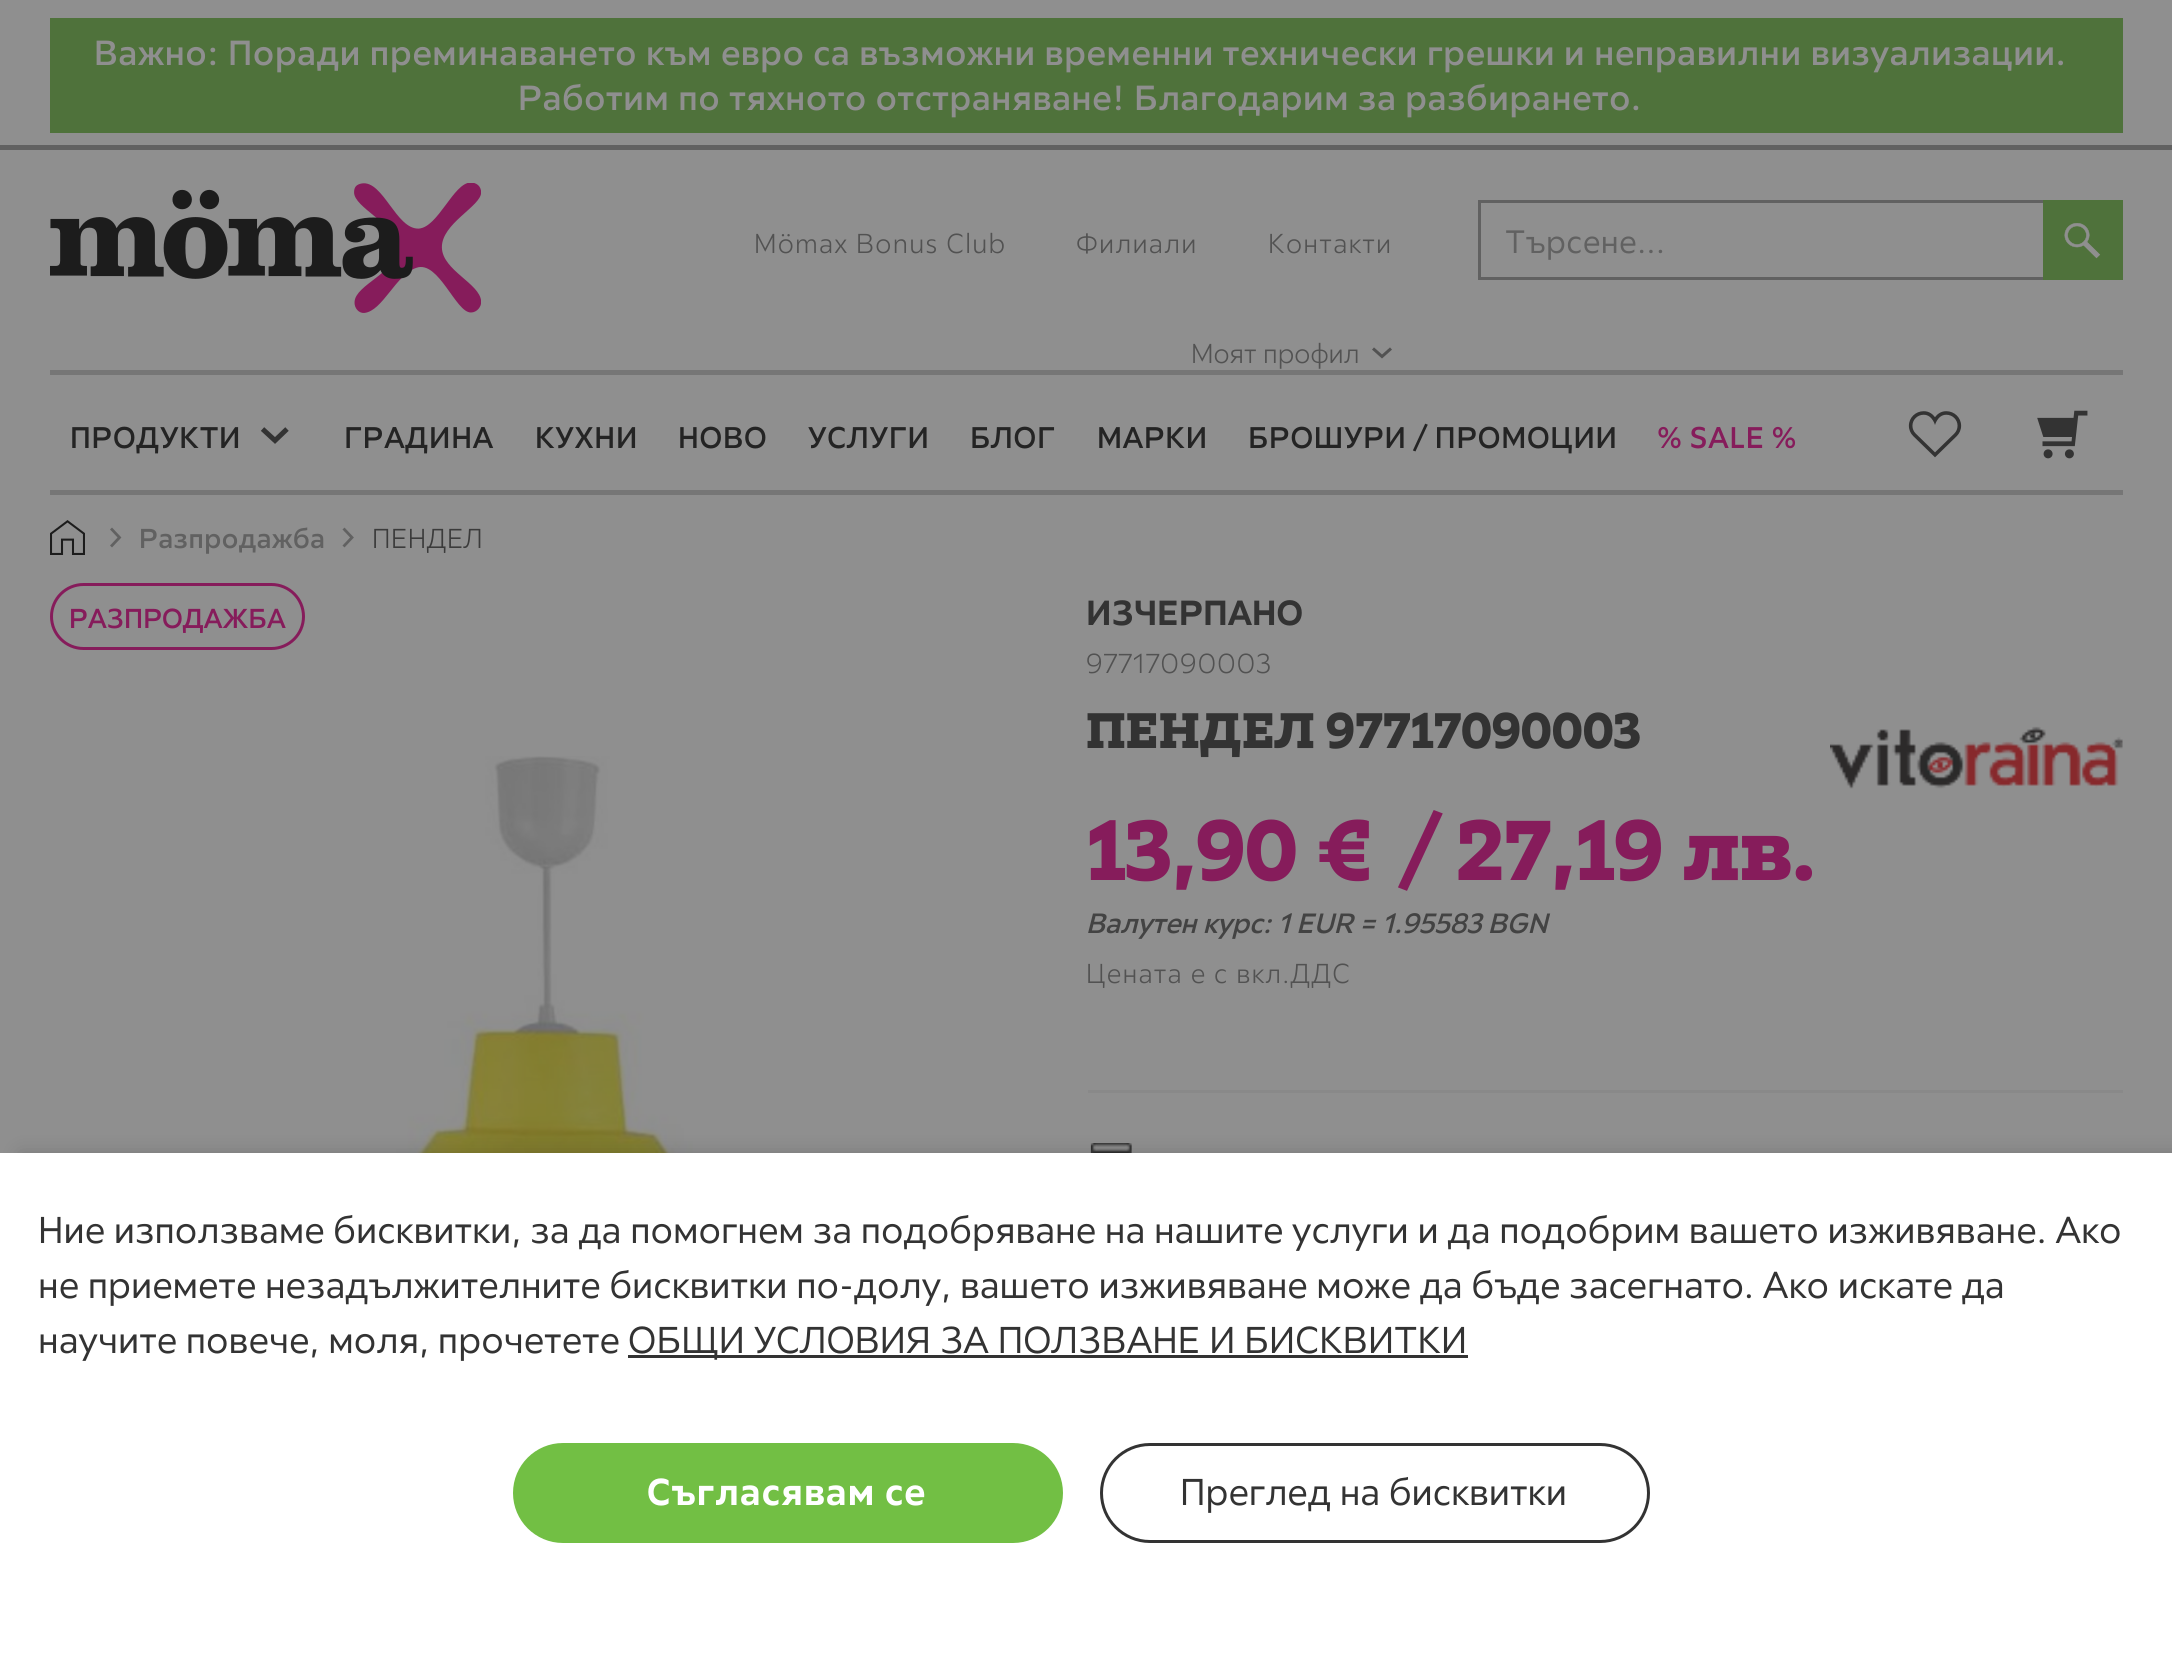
import math
import cairocffi as cairo

surface = cairo.ImageSurface(cairo.FORMAT_RGB24, 2172, 1655)
ctx = cairo.Context(surface)
options = cairo.FontOptions()
options.set_hint_metrics(cairo.HINT_METRICS_OFF)
options.set_hint_style(cairo.HINT_STYLE_NONE)
ctx.set_font_options(options)
ctx.set_miter_limit(4)


def rgb(r, g, b):
    ctx.set_source_rgb(r / 255, g / 255, b / 255)


def face(family, size, italic, bold):
    ctx.select_font_face(family, cairo.FONT_SLANT_ITALIC if italic else cairo.FONT_SLANT_NORMAL, cairo.FONT_WEIGHT_BOLD if bold else cairo.FONT_WEIGHT_NORMAL)
    ctx.set_font_size(size)


def label(x, y, s):
    ctx.move_to(x, y)
    ctx.show_text(s)


def tracked(x, y, s, letter, word):
    ctx.move_to(x, y)
    for ch in s:
        ctx.show_text(ch)
        ctx.rel_move_to(letter + word * (ch == ' '), 0)


def rect(x, y, w, h):
    ctx.rectangle(x, y, w, h)
    ctx.fill()


def rrect(x, y, w, h, r):
    ctx.new_sub_path()
    for i, (u, v) in enumerate([(x + w - r, y + h - r), (x + r, y + h - r), (x + r, y + r), (x + w - r, y + r)]):
        ctx.arc(u, v, r, i * math.pi / 2, (i + 1) * math.pi / 2)
    ctx.close_path()


def soft_shadow(x, y, w, h, r, blur, alpha):
    ctx.push_group_with_content(cairo.CONTENT_ALPHA)
    ctx.set_operator(cairo.OPERATOR_SOURCE)
    for i in range(15, -16, -2):
        e = blur * i / 6
        if min(w, h) + 2 * e > 0:
            ctx.set_source_rgba(0, 0, 0, alpha * math.erfc((i - 1) / 8.5) / 2)
            rrect(x - e, y - e, w + 2 * e, h + 2 * e, max(0, min(r + e + blur * .6, min(w, h) / 2 + e)))
            ctx.fill()
    ctx.mask(ctx.pop_group())


def image(path, x, y, w, h):
    ctx.save()
    ctx.set_source_surface(cairo.ImageSurface.create_from_png(path), x, y)
    ctx.rectangle(x, y, w, h)
    ctx.fill()
    ctx.restore()


rgb(143, 143, 143)
ctx.paint()
rgb(97, 97, 97)
rect(0, 145, 2172, 5)
rgb(79, 114, 59)
rect(50, 18, 2073, 115)
face('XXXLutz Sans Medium', 35, 0, 0)
rgb(143, 143, 143)
tracked(94, 65, 'Важно: Поради преминаването към евро са възможни временни технически грешки и неправилни визуализации.', 0.75, 0)
tracked(518, 110, 'Работим по тяхното отстраняване! Благодарим за разбирането.', 0.75, 0)
image('image0.png', 50, 183, 431, 130)
face('XXXLutz Sans Light', 27.5, 0, 0)
rgb(82, 82, 82)
tracked(754, 253, 'Mömax Bonus Club', 1.25, 0)
tracked(1076, 253, 'Филиали', 1.25, 0)
tracked(1268, 253, 'Контакти', 1.25, 0)
ctx.rectangle(1479.5, 201.5, 642, 77)
rgb(97, 97, 97)
ctx.set_line_width(3)
ctx.stroke()
face('XXXLutz Sans', 32.5, 0, 0)
tracked(1505, 253, 'Търсене...', 0.5, 0)
rgb(79, 114, 59)
rect(2043, 200, 80, 80)
image('image1.png', 2064, 223, 37, 36)
face('XXXLutz Sans Light', 27.5, 0, 0)
rgb(82, 82, 82)
label(1191, 363, 'Моят профил')
ctx.new_path()
ctx.move_to(1373, 348.5)
ctx.line_to(1382, 356.5)
ctx.line_to(1391, 348.5)
ctx.stroke()
image('image2.png', 1908, 411, 54, 47)
image('image3.png', 2037, 410, 51, 49)
rgb(118, 118, 118)
rect(50, 370, 2073, 5)
rect(50, 490, 2073, 5)
face('XXXLutz Sans Medium', 30, 0, 0)
rgb(36, 36, 36)
tracked(70, 448, 'ПРОДУКТИ', 0.75, 0)
ctx.new_path()
ctx.move_to(262.5, 429)
ctx.line_to(275, 440.5)
ctx.line_to(287, 429)
rgb(51, 51, 51)
ctx.set_line_width(5)
ctx.stroke()
rgb(36, 36, 36)
tracked(344, 448, 'ГРАДИНА', 0.75, 0)
tracked(535, 448, 'КУХНИ', 0.75, 0)
tracked(678, 448, 'НОВО', 0.75, 0)
tracked(808, 448, 'УСЛУГИ', 0.75, 0)
tracked(970, 448, 'БЛОГ', 0.75, 0)
tracked(1097, 448, 'МАРКИ', 0.75, 0)
tracked(1248, 448, 'БРОШУРИ / ПРОМОЦИИ', 0.75, 0)
rgb(134, 28, 91)
tracked(1658, 448, '% SALE %', 0.75, 0)
image('image4.png', 50, 520, 35, 35)
ctx.new_path()
ctx.move_to(111, 546.5)
ctx.line_to(119.5, 537.5)
ctx.line_to(111, 528.5)
rgb(97, 97, 97)
ctx.set_line_width(2.8)
ctx.stroke()
face('XXXLutz Sans Medium', 27.5, 0, 0)
tracked(139, 548, 'Разпродажба', 0.5, 0)
ctx.new_path()
ctx.move_to(343.5, 546.5)
ctx.line_to(352, 537.5)
ctx.line_to(343.5, 528.5)
ctx.stroke()
face('XXXLutz Sans Light', 27.5, 0, 0)
rgb(59, 59, 59)
tracked(372, 548, 'ПЕНДЕЛ', 0.5, 0)
rrect(51.5, 584.5, 252, 64, 32)
rgb(134, 28, 91)
ctx.set_line_width(3)
ctx.stroke()
face('XXXLutz Sans Medium', 27.5, 0, 0)
label(69, 628, 'РАЗПРОДАЖБА')
image('image5.png', 336, 756, 408, 397)
face('XXXLutz Sans', 35, 0, 1)
rgb(51, 51, 51)
label(1086, 625, 'ИЗЧЕРПАНО')
face('XXXLutz Sans Light', 27.5, 0, 0)
rgb(82, 82, 82)
tracked(1086, 673, '97717090003', 1.25, 0)
face('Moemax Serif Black', 50, 0, 0)
rgb(51, 51, 51)
label(1086, 748, 'ПЕНДЕЛ 97717090003')
image('image6.png', 1830, 726, 293, 63)
face('Moemax Serif Black', 85, 0, 0)
rgb(134, 28, 91)
label(1086, 880, '13,90 €')
label(1403, 880, '/ 27,19 лв.')
face('XXXLutz Sans Medium', 28, 1, 0)
rgb(67, 67, 67)
label(1086, 933, 'Валутен курс: 1 EUR = 1.95583 BGN')
face('XXXLutz Sans Light', 27.5, 0, 0)
rgb(82, 82, 82)
tracked(1086, 983, 'Цената е с вкл.ДДС', 1.25, 0)
rgb(137, 137, 137)
rect(1088, 1090, 1035, 3)
image('image7.png', 1090, 1143, 42, 10)
rgb(0, 0, 0)
soft_shadow(20, 1153, 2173, 502, 0, 10, 0.15)
rgb(255, 255, 255)
rect(0, 1153, 2172, 502)
face('XXXLutz Sans', 37.5, 0, 0)
rgb(51, 51, 51)
label(38, 1243, 'Ние използваме бисквитки, за да помогнем за подобряване на нашите услуги и да подобрим вашето изживяване. Ако')
label(38, 1298, 'не приемете незадължителните бисквитки по-долу, вашето изживяване може да бъде засегнато. Ако искате да')
label(38, 1353, 'научите повече, моля, прочетете')
rect(628, 1355, 840, 3)
label(628, 1353, 'ОБЩИ УСЛОВИЯ ЗА ПОЛЗВАНЕ И БИСКВИТКИ')
rgb(114, 191, 68)
rrect(514.5, 1444.5, 547, 97, 48.5)
ctx.fill_preserve()
ctx.stroke()
face('XXXLutz Sans', 37.5, 0, 1)
rgb(255, 255, 255)
tracked(647, 1505, 'Съгласявам се', 1.25, 0)
rrect(1101.5, 1444.5, 547, 97, 48.5)
rgb(51, 51, 51)
ctx.stroke()
face('XXXLutz Sans', 37.5, 0, 0)
label(1180, 1505, 'Преглед на бисквитки')
surface.write_to_png('render.png')
